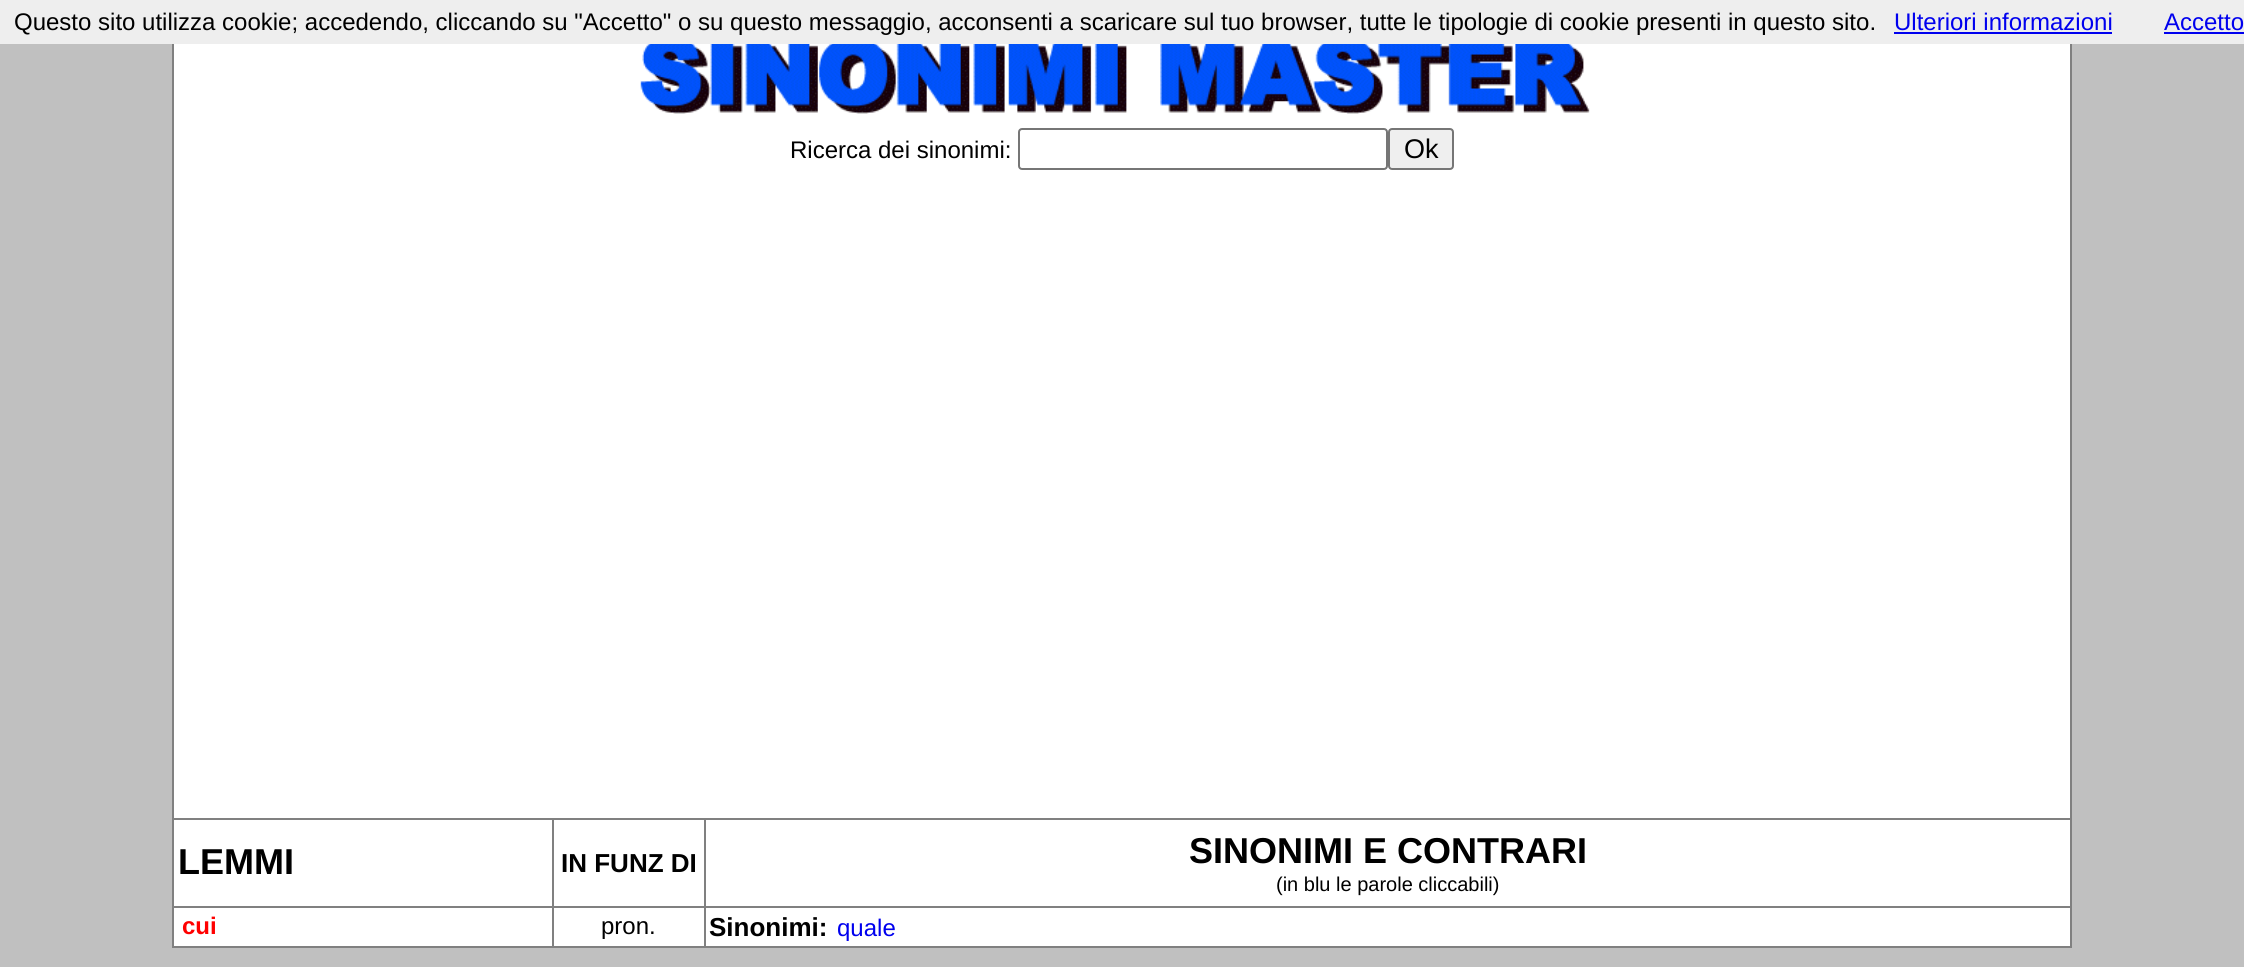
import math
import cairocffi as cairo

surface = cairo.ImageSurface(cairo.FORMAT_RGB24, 2244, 967)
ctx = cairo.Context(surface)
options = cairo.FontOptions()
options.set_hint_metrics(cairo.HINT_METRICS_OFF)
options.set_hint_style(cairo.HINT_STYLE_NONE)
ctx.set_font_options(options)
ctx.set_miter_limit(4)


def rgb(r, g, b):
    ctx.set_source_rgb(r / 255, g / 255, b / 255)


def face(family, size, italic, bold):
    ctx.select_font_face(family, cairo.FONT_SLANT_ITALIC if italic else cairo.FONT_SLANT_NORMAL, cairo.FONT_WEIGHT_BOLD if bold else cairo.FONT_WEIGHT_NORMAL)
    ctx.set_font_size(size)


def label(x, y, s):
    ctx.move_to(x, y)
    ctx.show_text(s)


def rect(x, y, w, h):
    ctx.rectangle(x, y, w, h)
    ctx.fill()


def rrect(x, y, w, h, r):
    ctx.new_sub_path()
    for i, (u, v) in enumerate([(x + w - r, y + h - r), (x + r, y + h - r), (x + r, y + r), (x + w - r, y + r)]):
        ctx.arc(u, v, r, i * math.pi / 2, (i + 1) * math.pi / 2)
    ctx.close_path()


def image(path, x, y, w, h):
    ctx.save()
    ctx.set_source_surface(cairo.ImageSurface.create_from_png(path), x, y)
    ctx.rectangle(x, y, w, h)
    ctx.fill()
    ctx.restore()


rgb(192, 192, 192)
ctx.paint()
rgb(238, 238, 238)
rect(0, 0, 2244, 44)
face('Liberation Sans', 24, 0, 0)
rgb(0, 0, 0)
label(14, 30, 'Questo sito utilizza cookie; accedendo, cliccando su "Accetto" o su questo messaggio, acconsenti a scaricare sul tuo browser, tutte le tipologie di cookie presenti in questo sito.')
rgb(0, 0, 238)
label(1894, 30, 'Ulteriori informazioni')
rect(1894, 32, 218, 2)
label(2164, 30, 'Accetto')
rect(2164, 32, 80, 2)
rgb(255, 255, 255)
rect(174, 44, 1896, 902)
rgb(128, 128, 128)
rect(2070, 44, 2, 904)
rect(172, 946, 1900, 2)
rect(172, 44, 2, 904)
image('image0.png', 640, 44, 950, 70)
rgb(0, 0, 0)
label(790, 158, 'Ricerca dei sinonimi:')
rrect(1019, 129, 368, 40, 3)
rgb(118, 118, 118)
ctx.stroke()
rgb(239, 239, 239)
rrect(1389, 129, 64, 40, 3)
ctx.fill_preserve()
rgb(118, 118, 118)
ctx.stroke()
face('Liberation Sans', 27, 0, 0)
rgb(0, 0, 0)
label(1404, 158, 'Ok')
rgb(128, 128, 128)
rect(704, 818, 1368, 2)
rect(704, 906, 1368, 2)
rect(704, 906, 2, 42)
rect(552, 906, 154, 2)
rect(704, 818, 2, 90)
rect(552, 818, 154, 2)
rect(552, 906, 2, 42)
rect(172, 906, 382, 2)
rect(552, 818, 2, 90)
rect(172, 818, 382, 2)
face('Liberation Sans', 36, 0, 1)
rgb(0, 0, 0)
label(178, 874, 'LEMMI')
face('Liberation Sans', 26, 0, 1)
label(561, 872, 'IN FUNZ DI')
face('Liberation Sans', 36, 0, 1)
label(1189, 863, 'SINONIMI E CONTRARI')
face('Liberation Sans', 20, 0, 0)
label(1276, 891, '(in blu le parole cliccabili)')
face('Liberation Sans', 24, 0, 1)
rgb(255, 0, 0)
label(182, 934, 'cui')
face('Liberation Sans', 24, 0, 0)
rgb(0, 0, 0)
label(601, 934, 'pron.')
face('Liberation Sans', 26, 0, 1)
label(709, 936, 'Sinonimi:')
face('Liberation Sans', 24, 0, 0)
rgb(0, 0, 238)
label(837, 936, 'quale')
surface.write_to_png('render.png')
